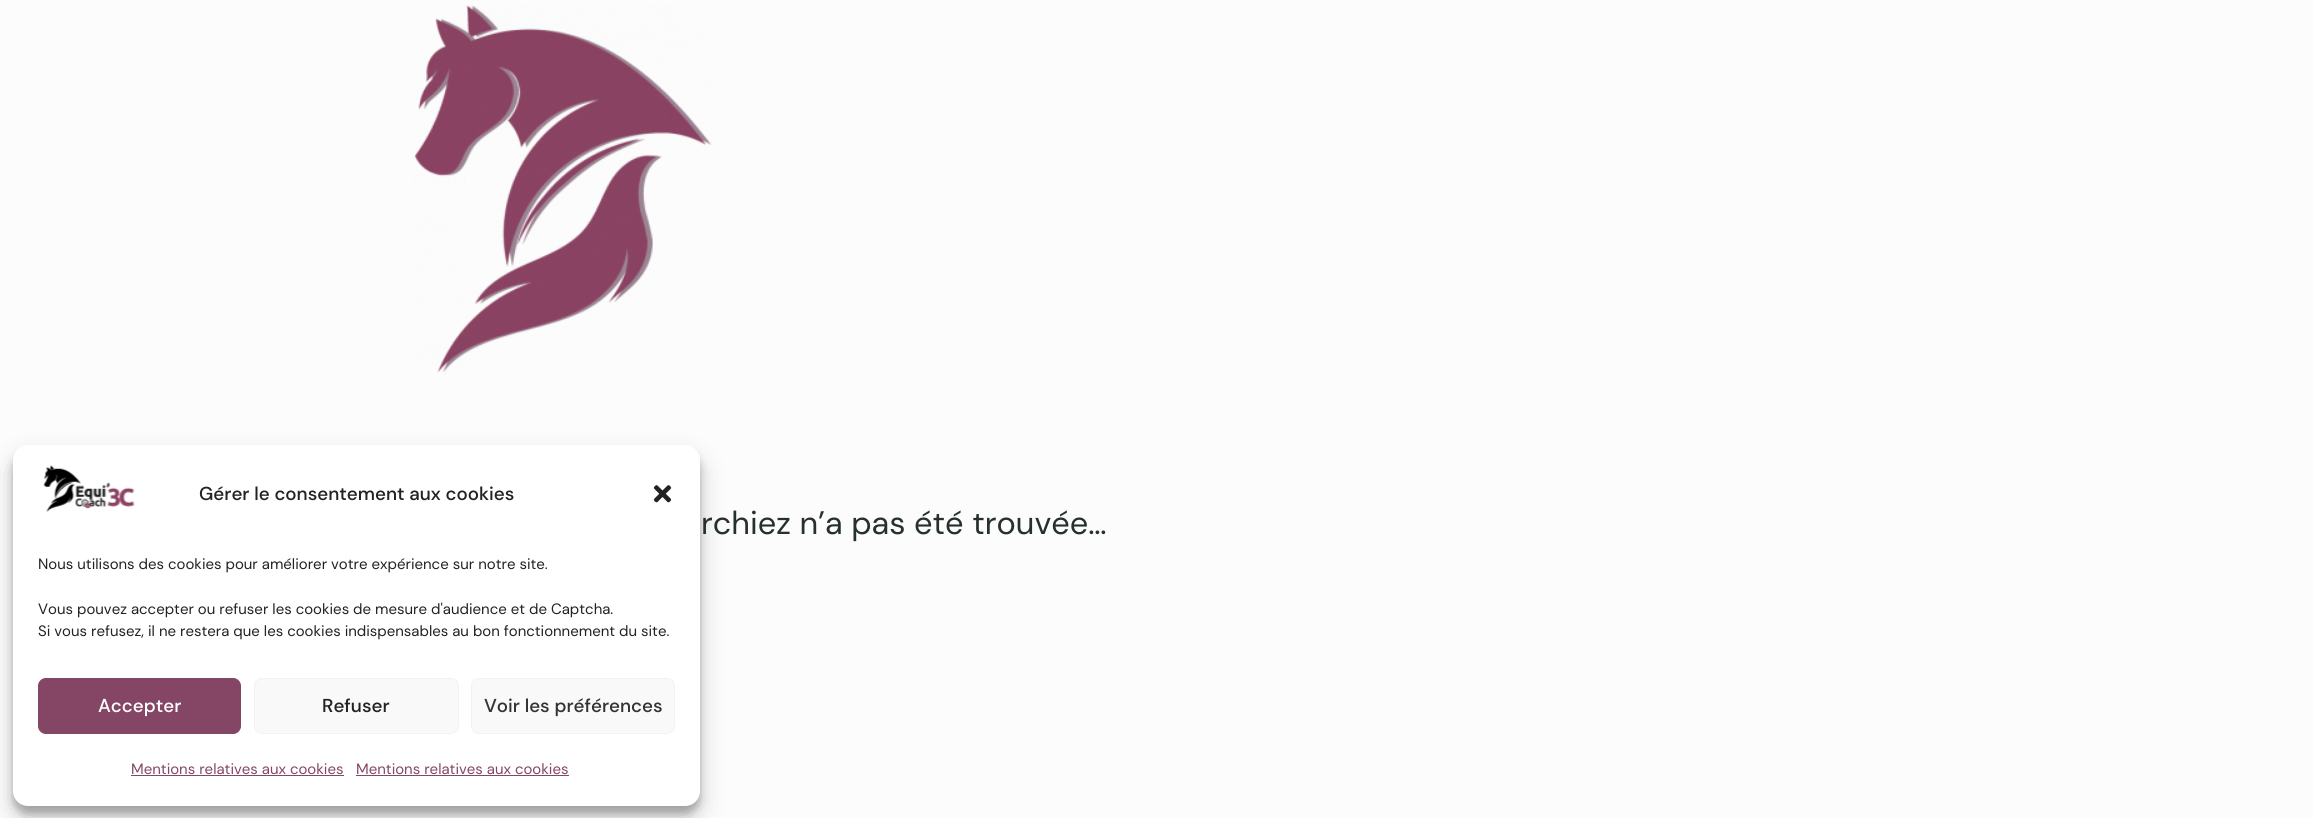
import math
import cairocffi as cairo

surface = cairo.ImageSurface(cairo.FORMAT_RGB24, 2313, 818)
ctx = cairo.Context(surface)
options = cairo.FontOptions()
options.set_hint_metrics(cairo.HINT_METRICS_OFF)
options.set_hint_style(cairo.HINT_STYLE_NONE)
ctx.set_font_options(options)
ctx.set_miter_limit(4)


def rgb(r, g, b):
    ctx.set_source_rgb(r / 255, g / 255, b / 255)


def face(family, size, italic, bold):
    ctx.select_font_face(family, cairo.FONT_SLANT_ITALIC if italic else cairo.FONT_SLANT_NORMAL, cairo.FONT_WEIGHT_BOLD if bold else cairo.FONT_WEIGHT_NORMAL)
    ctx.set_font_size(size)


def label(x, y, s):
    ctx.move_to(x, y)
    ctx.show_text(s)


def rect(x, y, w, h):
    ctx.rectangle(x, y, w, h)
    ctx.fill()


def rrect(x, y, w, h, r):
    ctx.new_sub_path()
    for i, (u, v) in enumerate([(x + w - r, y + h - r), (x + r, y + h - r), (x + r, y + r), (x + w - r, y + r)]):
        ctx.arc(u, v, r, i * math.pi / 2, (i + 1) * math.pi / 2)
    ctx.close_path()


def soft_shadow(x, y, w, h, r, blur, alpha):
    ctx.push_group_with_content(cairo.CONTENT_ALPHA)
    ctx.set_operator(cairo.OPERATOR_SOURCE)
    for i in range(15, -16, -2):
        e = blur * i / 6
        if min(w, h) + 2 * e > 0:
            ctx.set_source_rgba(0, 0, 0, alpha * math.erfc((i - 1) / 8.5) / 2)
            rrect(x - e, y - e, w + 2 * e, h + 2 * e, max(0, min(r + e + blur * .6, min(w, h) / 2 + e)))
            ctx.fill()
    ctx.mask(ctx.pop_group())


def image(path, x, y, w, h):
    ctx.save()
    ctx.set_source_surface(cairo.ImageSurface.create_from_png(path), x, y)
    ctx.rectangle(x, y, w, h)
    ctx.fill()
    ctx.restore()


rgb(252, 252, 252)
ctx.paint()
rgb(0, 0, 0)
soft_shadow(13, 453, 687, 361, 15, 4, 0.23)
soft_shadow(13, 458, 687, 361, 15, 12.5, 0.19)
rgb(255, 255, 255)
rrect(13, 445, 687, 361, 15)
ctx.fill()
image('image0.png', 43, 465, 92, 47)
face('DM Sans Medium', 18.75, 0, 0)
rgb(34, 34, 34)
label(199, 500, 'Gérer le consentement aux cookies')
image('image1.png', 653, 485, 19, 18)
face('DM Sans', 15, 0, 0)
label(38, 569, 'Nous utilisons des cookies pour améliorer votre expérience sur notre site.')
label(38, 614, 'Vous pouvez accepter ou refuser les cookies de mesure d\'audience et de Captcha.')
label(38, 636, 'Si vous refusez, il ne restera que les cookies indispensables au bon fonctionnement du site.')
rgb(133, 69, 101)
rrect(38.5, 678.5, 202, 55, 7.5)
ctx.fill_preserve()
ctx.set_line_width(1)
ctx.stroke()
face('DM Sans Medium', 18.75, 0, 0)
rgb(255, 255, 255)
label(98, 712, 'Accepter')
rgb(249, 249, 249)
rrect(254.5, 678.5, 204, 55, 7.5)
ctx.fill_preserve()
rgb(242, 242, 242)
ctx.stroke()
rgb(34, 34, 34)
label(322, 712, 'Refuser')
rgb(249, 249, 249)
rrect(471.5, 678.5, 203, 55, 7.5)
ctx.fill_preserve()
rgb(242, 242, 242)
ctx.stroke()
rgb(51, 51, 51)
label(484, 712, 'Voir les préférences')
face('DM Sans', 15, 0, 0)
rgb(133, 69, 101)
label(131, 774, 'Mentions relatives aux cookies')
rect(131, 775, 213, 1)
label(356, 774, 'Mentions relatives aux cookies')
rect(356, 775, 213, 1)
image('image2.png', 414, 5, 298, 368)
face('DM Sans', 32.5, 0, 0)
rgb(38, 49, 44)
label(701, 534, 'rchiez n’a pas été trouvée…')
surface.write_to_png('render.png')
